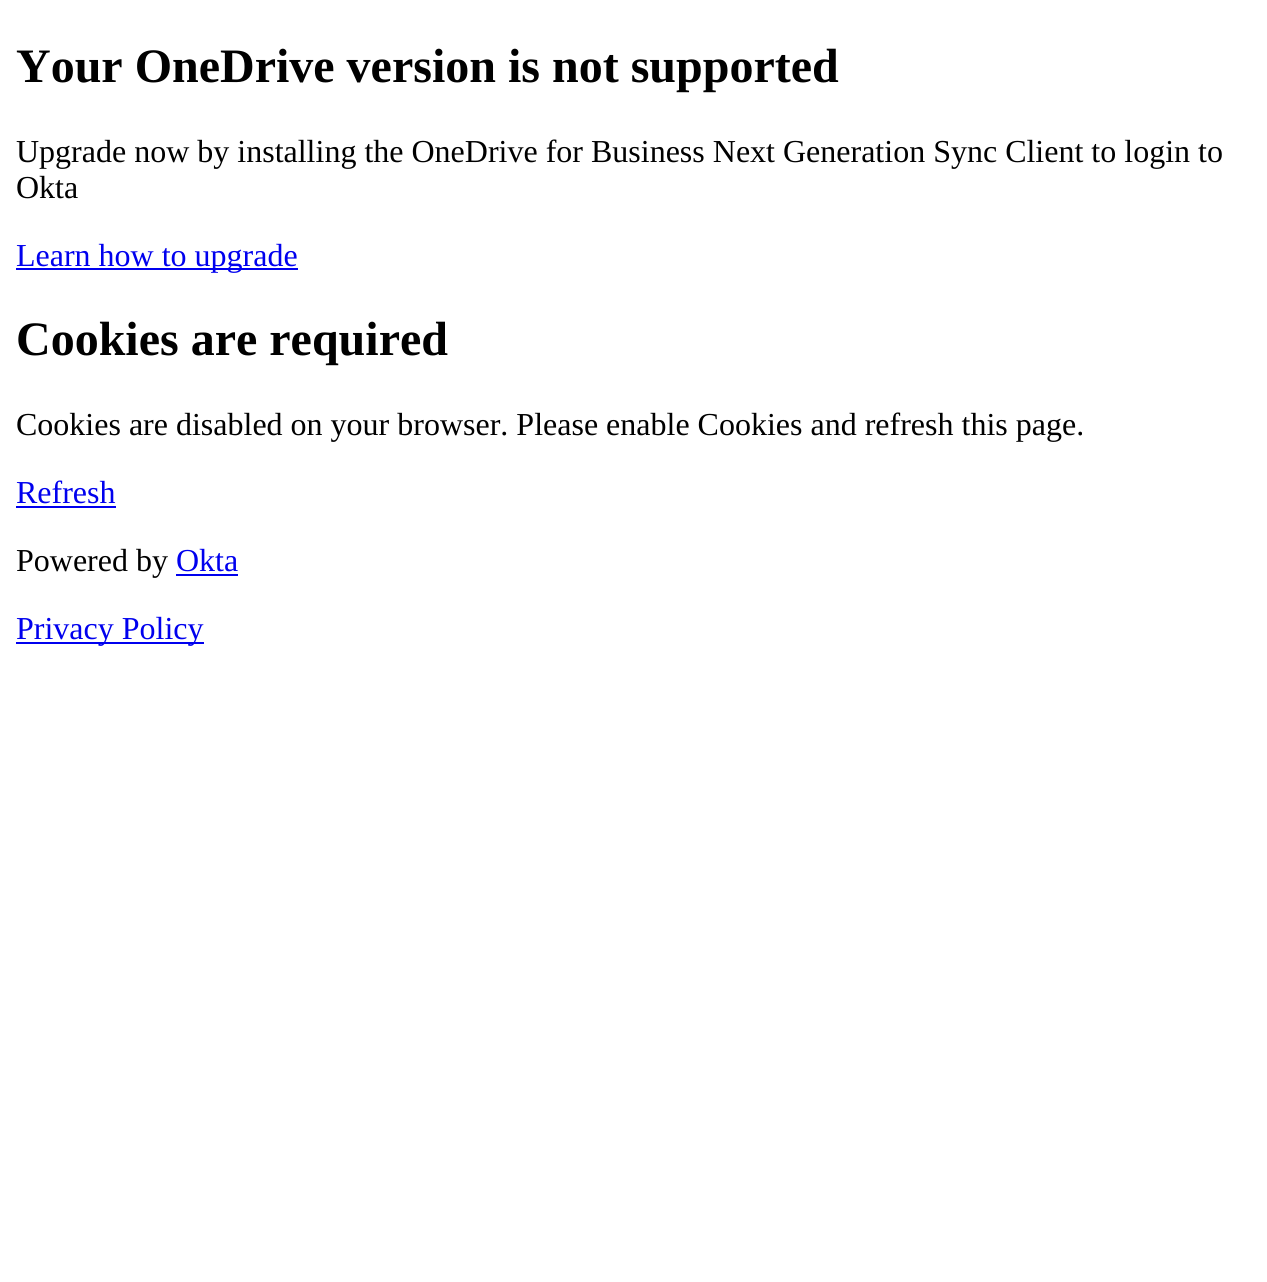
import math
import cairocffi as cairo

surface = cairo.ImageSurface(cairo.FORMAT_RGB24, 1267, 1282)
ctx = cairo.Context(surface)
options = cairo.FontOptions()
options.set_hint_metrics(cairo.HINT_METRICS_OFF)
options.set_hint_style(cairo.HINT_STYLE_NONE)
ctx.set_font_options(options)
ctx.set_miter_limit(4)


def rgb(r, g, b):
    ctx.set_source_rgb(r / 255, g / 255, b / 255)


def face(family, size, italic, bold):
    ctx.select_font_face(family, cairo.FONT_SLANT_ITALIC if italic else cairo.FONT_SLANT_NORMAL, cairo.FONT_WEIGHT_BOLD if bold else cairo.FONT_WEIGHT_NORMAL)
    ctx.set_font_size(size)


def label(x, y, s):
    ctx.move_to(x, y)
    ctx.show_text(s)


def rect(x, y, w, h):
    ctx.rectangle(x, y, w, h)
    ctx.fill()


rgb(255, 255, 255)
ctx.paint()
face('Liberation Serif', 48, 0, 1)
rgb(0, 0, 0)
label(16, 82, 'Your OneDrive version is not supported')
face('Liberation Serif', 32, 0, 0)
label(16, 162, 'Upgrade now by installing the OneDrive for Business Next Generation Sync Client to login to')
label(16, 198, 'Okta')
rgb(0, 0, 238)
rect(16, 268, 282, 2)
label(16, 266, 'Learn how to upgrade')
face('Liberation Serif', 48, 0, 1)
rgb(0, 0, 0)
label(16, 355, 'Cookies are required')
face('Liberation Serif', 32, 0, 0)
label(16, 435, 'Cookies are disabled on your browser. Please enable Cookies and refresh this page.')
rgb(0, 0, 238)
label(16, 503, 'Refresh')
rect(16, 506, 100, 2)
rgb(0, 0, 0)
label(16, 571, 'Powered by')
rgb(0, 0, 238)
label(176, 571, 'Okta')
rect(176, 574, 62, 2)
rect(16, 642, 188, 2)
label(16, 639, 'Privacy Policy')
surface.write_to_png('render.png')
